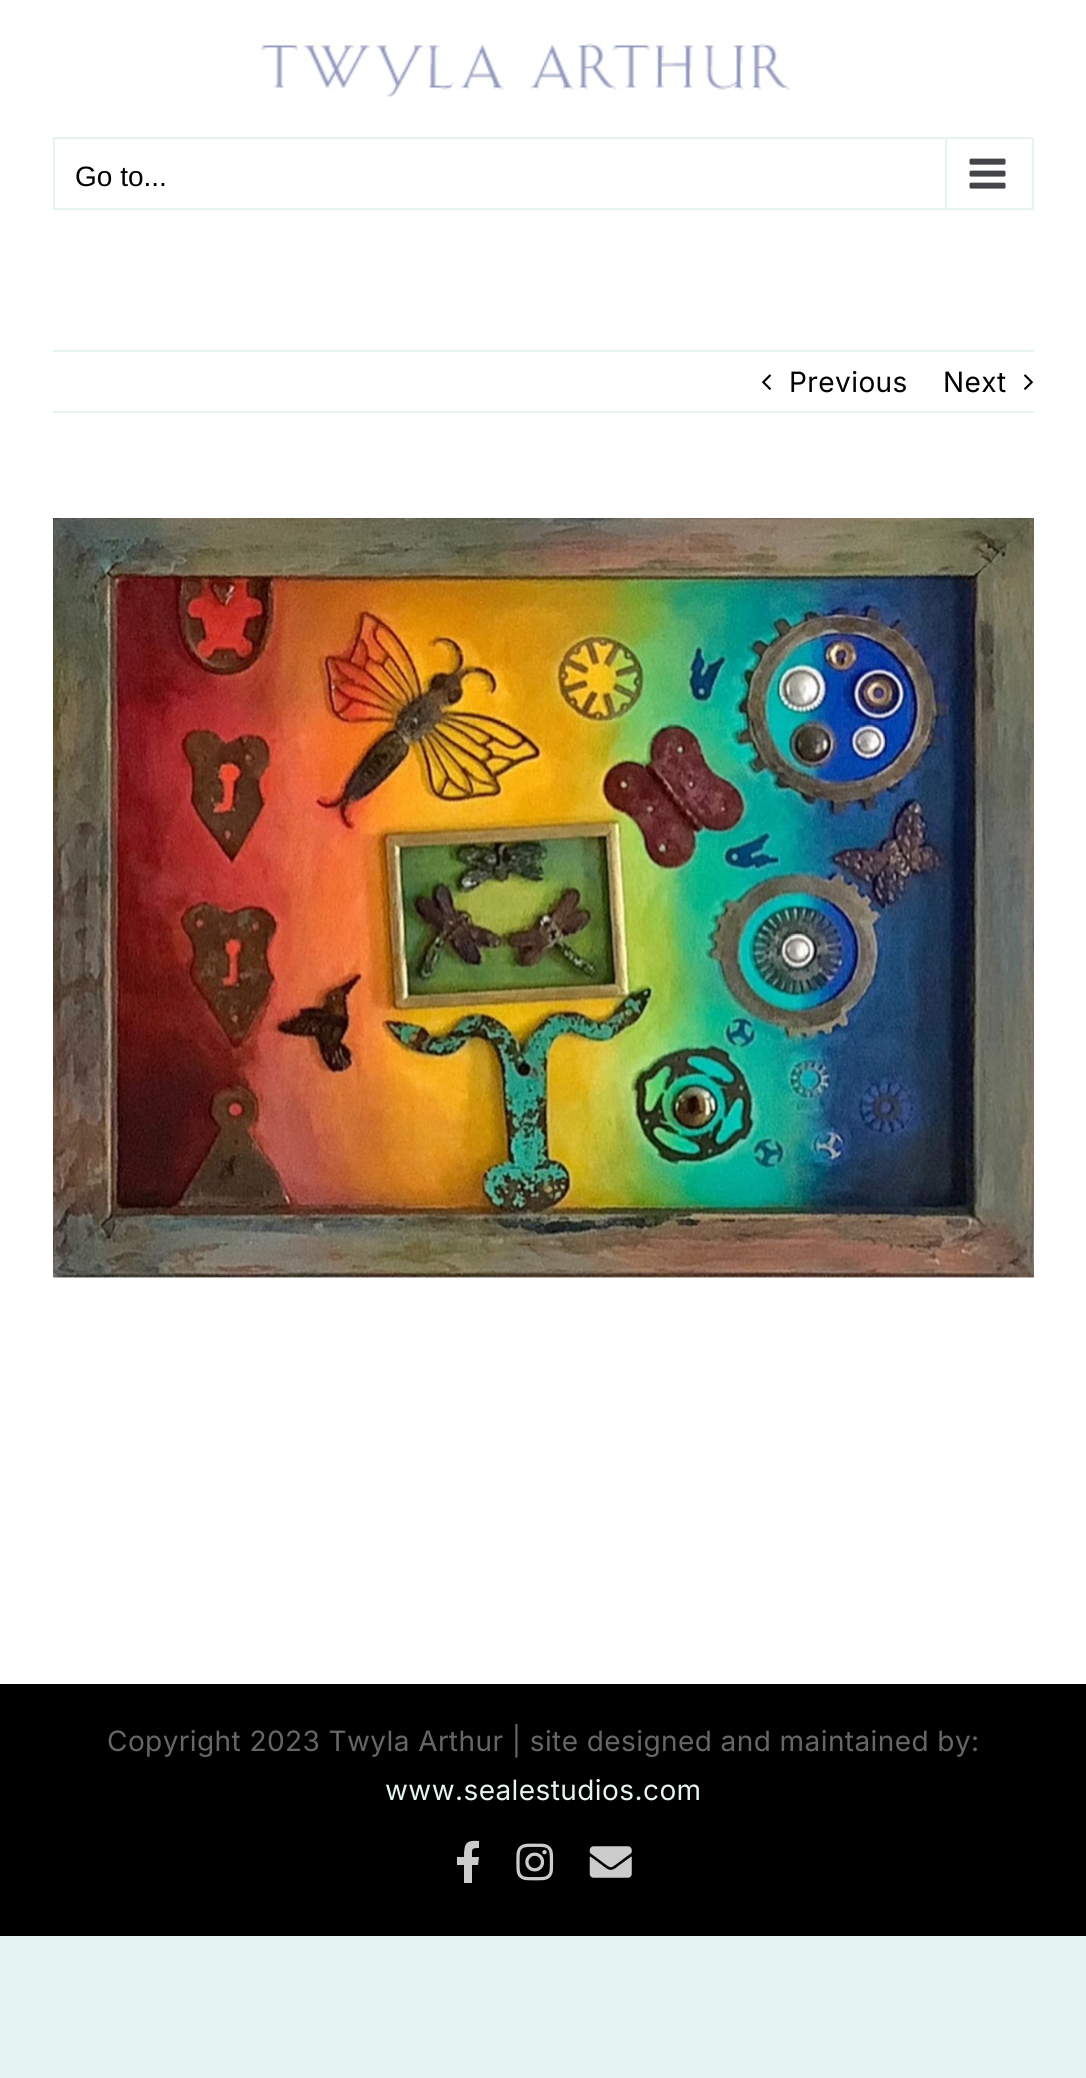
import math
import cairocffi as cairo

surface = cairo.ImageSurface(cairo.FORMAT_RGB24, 1086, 2078)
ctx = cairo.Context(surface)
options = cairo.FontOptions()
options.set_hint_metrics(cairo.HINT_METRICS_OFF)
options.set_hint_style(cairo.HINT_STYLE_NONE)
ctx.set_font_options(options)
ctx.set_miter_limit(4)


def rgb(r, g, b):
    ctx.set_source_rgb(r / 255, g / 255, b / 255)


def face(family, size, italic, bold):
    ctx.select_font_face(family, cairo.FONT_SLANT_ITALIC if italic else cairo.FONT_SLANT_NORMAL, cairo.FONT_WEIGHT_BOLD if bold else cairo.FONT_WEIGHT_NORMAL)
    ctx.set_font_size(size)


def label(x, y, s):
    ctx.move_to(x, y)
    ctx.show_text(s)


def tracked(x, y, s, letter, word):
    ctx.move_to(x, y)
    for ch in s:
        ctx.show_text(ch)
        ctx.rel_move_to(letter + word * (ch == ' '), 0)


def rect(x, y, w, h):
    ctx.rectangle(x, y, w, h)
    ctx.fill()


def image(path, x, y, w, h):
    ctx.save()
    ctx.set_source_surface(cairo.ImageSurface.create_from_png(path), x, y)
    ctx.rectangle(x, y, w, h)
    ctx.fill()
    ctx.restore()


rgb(230, 244, 241)
ctx.paint()
rgb(255, 255, 255)
rect(0, 0, 1086, 1684)
image('image0.png', 260, 39, 531, 58)
ctx.rectangle(54, 138, 979, 71)
rgb(230, 244, 241)
ctx.stroke()
face('Liberation Sans', 28, 0, 0)
rgb(0, 0, 0)
label(75, 186, 'Go to...')
rgb(230, 244, 241)
rect(945, 138, 2, 70)
image('image1.png', 969, 158, 37, 31)
rect(53, 350, 981, 2)
rect(53, 411, 981, 2)
image('image2.png', 762, 374, 9, 16)
face('Inter', 28, 0, 0)
rgb(0, 0, 0)
tracked(789, 392, 'Previous', 0.42, 0)
tracked(943, 392, 'Next', 0.42, 0)
image('image3.png', 1024, 374, 9, 16)
image('image4.png', 53, 518, 981, 760)
rect(0, 1684, 1086, 252)
rgb(102, 102, 102)
tracked(107, 1751, 'Copyright 2023 Twyla Arthur | site designed and maintained by:', 0.42, 0)
rgb(230, 244, 241)
tracked(385, 1800, 'www.sealestudios.com', 0.42, 0)
rgb(204, 204, 204)
ctx.new_path()
ctx.move_to(478, 1865)
ctx.line_to(472, 1865)
ctx.line_to(472, 1883)
ctx.line_to(464, 1883)
ctx.line_to(464, 1865)
ctx.line_to(457, 1865)
ctx.line_to(457, 1857)
ctx.line_to(464, 1857)
ctx.curve_to(464, 1843, 466, 1840, 479, 1841)
ctx.line_to(479, 1848)
ctx.curve_to(471, 1848, 472, 1849, 472, 1857)
ctx.line_to(479, 1857)
ctx.close_path()
ctx.fill()
image('image5.png', 516, 1843, 38, 38)
image('image6.png', 589, 1846, 43, 32)
surface.write_to_png('render.png')
